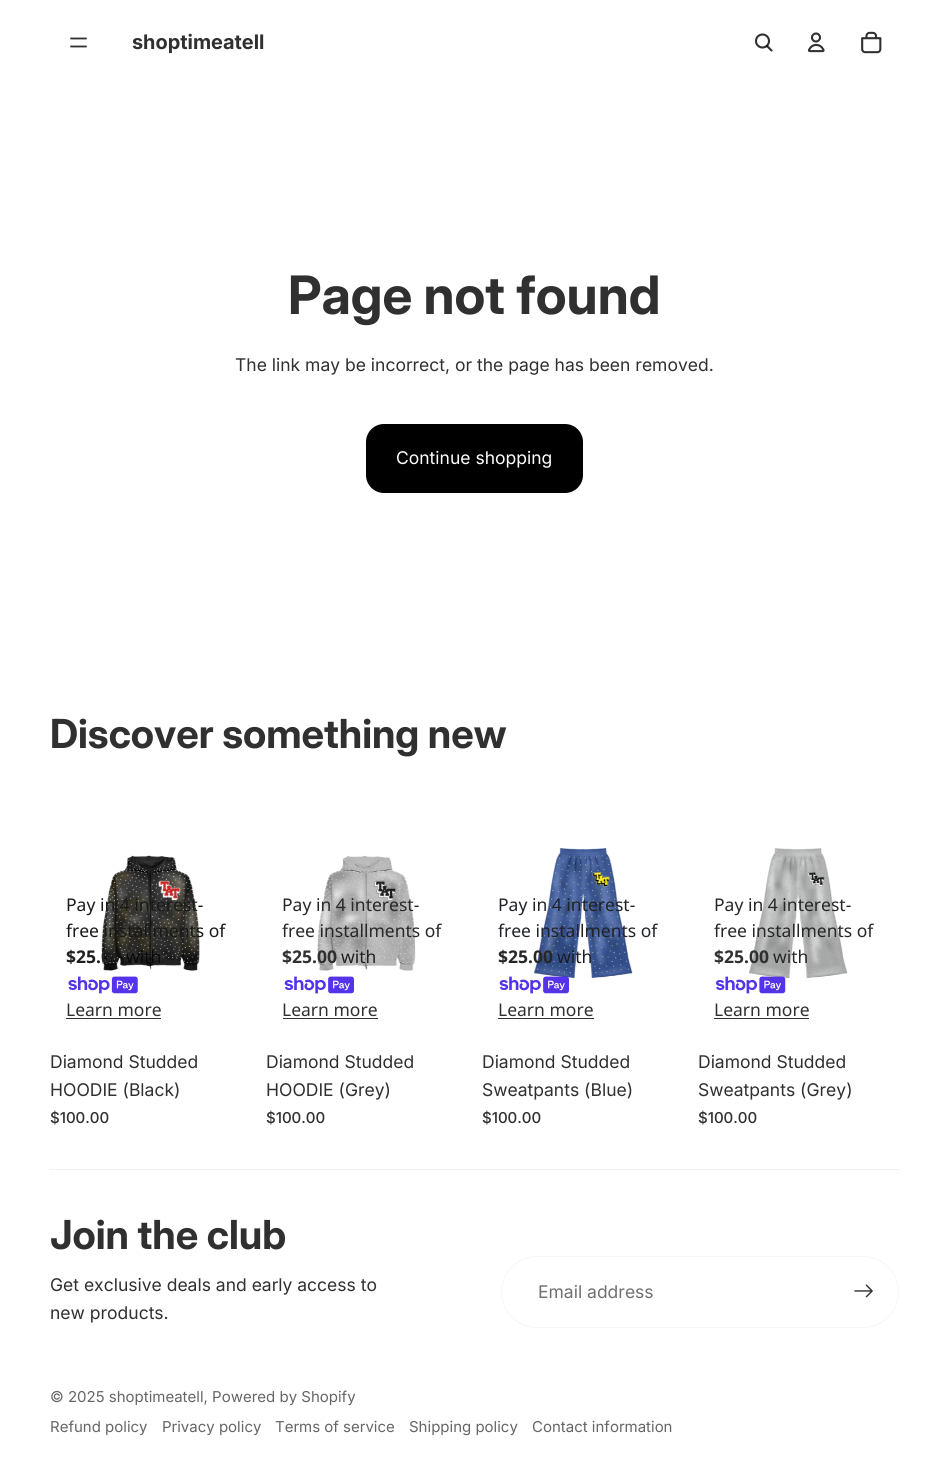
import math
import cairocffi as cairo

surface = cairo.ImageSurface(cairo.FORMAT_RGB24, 948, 1461)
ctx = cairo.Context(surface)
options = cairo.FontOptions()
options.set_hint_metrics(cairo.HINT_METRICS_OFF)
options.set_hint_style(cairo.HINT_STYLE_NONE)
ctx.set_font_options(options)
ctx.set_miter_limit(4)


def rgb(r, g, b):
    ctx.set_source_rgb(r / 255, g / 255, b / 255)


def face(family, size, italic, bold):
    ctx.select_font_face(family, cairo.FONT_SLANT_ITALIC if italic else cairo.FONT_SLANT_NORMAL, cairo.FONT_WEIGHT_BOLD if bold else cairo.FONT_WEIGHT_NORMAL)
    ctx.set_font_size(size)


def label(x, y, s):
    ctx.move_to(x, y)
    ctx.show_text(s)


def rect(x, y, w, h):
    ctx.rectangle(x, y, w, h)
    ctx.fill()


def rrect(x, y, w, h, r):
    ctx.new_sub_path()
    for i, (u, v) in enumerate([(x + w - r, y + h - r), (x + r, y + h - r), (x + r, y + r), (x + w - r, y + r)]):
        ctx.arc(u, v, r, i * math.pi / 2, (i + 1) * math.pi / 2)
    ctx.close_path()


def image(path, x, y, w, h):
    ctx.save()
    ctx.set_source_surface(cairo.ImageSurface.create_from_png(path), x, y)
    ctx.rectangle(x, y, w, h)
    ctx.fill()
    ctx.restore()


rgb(255, 255, 255)
ctx.paint()
ctx.new_path()
ctx.move_to(71, 38.5)
ctx.line_to(86, 38.5)
ctx.move_to(71, 46.5)
ctx.line_to(86, 46.5)
rgb(48, 48, 48)
ctx.set_line_width(1.8)
ctx.set_line_cap(cairo.LINE_CAP_ROUND)
ctx.stroke()
face('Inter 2', 20, 0, 1)
label(132, 49, 'shoptimeatell')
ctx.new_path()
ctx.arc(762.5, 41, 6.5, 0, 2 * math.pi)
ctx.set_line_width(2.1)
ctx.set_line_cap(cairo.LINE_CAP_BUTT)
ctx.stroke()
ctx.new_path()
ctx.move_to(767, 46)
ctx.line_to(771.5, 50.5)
ctx.set_source_rgba(0, 0, 0, 0.81)
ctx.set_line_cap(cairo.LINE_CAP_ROUND)
ctx.set_line_join(cairo.LINE_JOIN_ROUND)
ctx.stroke()
image('image0.png', 807, 32, 18, 21)
image('image1.png', 861, 31, 21, 23)
face('Inter', 53, 0, 1)
rgb(48, 48, 48)
label(288, 314, 'Page not found')
face('Inter', 17.5, 0, 0)
label(235, 371, 'The link may be incorrect, or the page has been removed.')
rgb(0, 0, 0)
rrect(366, 424, 217, 69, 18)
ctx.fill()
rgb(255, 255, 255)
label(396, 464, 'Continue shopping')
face('Inter', 40, 0, 1)
rgb(48, 48, 48)
label(50, 748, 'Discover something new')
image('image2.png', 101, 855, 99, 116)
face('Noto Sans', 17.5, 0, 0)
rgb(25, 25, 24)
label(66, 911, 'Pay in 4 interest-')
label(66, 937, 'free installments of')
face('Noto Sans', 17.5, 0, 1)
rgb(32, 32, 32)
label(66, 963, '$25.0')
face('Noto Sans', 17.5, 0, 0)
rgb(8, 8, 8)
label(126, 963, 'with')
image('image3.png', 68, 976, 70, 18)
rgb(48, 48, 48)
label(66, 1016, 'Learn more')
rect(66, 1018, 95, 1)
face('Inter', 17.5, 0, 0)
label(50, 1068, 'Diamond Studded')
label(50, 1096, 'HOODIE (Black)')
face('Inter Medium', 15, 0, 0)
label(50, 1123, '$100.00')
image('image4.png', 317, 855, 99, 116)
face('Noto Sans', 17.5, 0, 0)
rgb(39, 39, 39)
label(282, 911, 'Pay in 4 interest-')
label(282, 937, 'free installments of')
face('Noto Sans', 17.5, 0, 1)
rgb(48, 48, 48)
label(282, 963, '$25.00')
face('Noto Sans', 17.5, 0, 0)
rgb(32, 32, 32)
label(341, 963, 'with')
image('image5.png', 284, 976, 70, 18)
rgb(48, 48, 48)
label(282, 1016, 'Learn more')
rect(283, 1018, 95, 1)
face('Inter', 17.5, 0, 0)
label(266, 1068, 'Diamond Studded')
label(266, 1096, 'HOODIE (Grey)')
face('Inter Medium', 15, 0, 0)
label(266, 1123, '$100.00')
image('image6.png', 534, 848, 99, 131)
face('Noto Sans', 17.5, 0, 0)
rgb(32, 35, 39)
label(498, 911, 'Pay in 4 interest-')
label(498, 937, 'free installments of')
face('Noto Sans', 17.5, 0, 1)
rgb(39, 39, 39)
label(498, 963, '$25.00')
face('Noto Sans', 17.5, 0, 0)
rgb(25, 28, 35)
label(557, 963, 'with')
image('image7.png', 499, 976, 70, 18)
rgb(48, 48, 48)
label(498, 1016, 'Learn more')
rect(498, 1018, 96, 1)
face('Inter', 17.5, 0, 0)
label(482, 1068, 'Diamond Studded')
label(482, 1096, 'Sweatpants (Blue)')
face('Inter Medium', 15, 0, 0)
label(482, 1123, '$100.00')
image('image8.png', 748, 848, 100, 131)
face('Noto Sans', 17.5, 0, 0)
rgb(39, 39, 39)
label(714, 911, 'Pay in 4 interest-')
label(714, 937, 'free installments of')
face('Noto Sans', 17.5, 0, 1)
rgb(48, 48, 48)
label(714, 963, '$25.00')
face('Noto Sans', 17.5, 0, 0)
rgb(39, 39, 39)
label(773, 963, 'with')
image('image9.png', 716, 976, 70, 18)
rgb(48, 48, 48)
label(714, 1016, 'Learn more')
rect(714, 1018, 95, 1)
face('Inter', 17.5, 0, 0)
label(698, 1068, 'Diamond Studded')
label(698, 1096, 'Sweatpants (Grey)')
face('Inter Medium', 15, 0, 0)
label(698, 1123, '$100.00')
rgb(240, 240, 240)
ctx.new_path()
ctx.move_to(899, 1169)
ctx.line_to(899, 1170)
ctx.line_to(897.5, 1169)
ctx.close_path()
ctx.fill()
ctx.set_source_rgba(0, 0, 0, 0.06)
ctx.new_path()
ctx.move_to(899, 1170)
ctx.line_to(50, 1170)
ctx.line_to(50, 1169)
ctx.line_to(898, 1169)
ctx.close_path()
ctx.fill()
face('Inter', 40, 0, 1)
rgb(48, 48, 48)
label(50, 1249, 'Join the club')
face('Inter', 17.5, 0, 0)
label(50, 1291, 'Get exclusive deals and early access to')
label(50, 1319, 'new products.')
rrect(501.5, 1256.5, 397, 71, 35.5)
rgb(245, 245, 245)
ctx.set_line_width(1)
ctx.set_line_cap(cairo.LINE_CAP_BUTT)
ctx.set_line_join(cairo.LINE_JOIN_MITER)
ctx.stroke()
rgb(112, 112, 112)
label(538, 1298, 'Email address')
image('image10.png', 854, 1284, 19, 14)
face('Inter', 15, 0, 0)
rgb(102, 102, 102)
label(50, 1402, '© 2025 shoptimeatell, Powered by Shopify')
label(50, 1432, 'Refund policy')
label(162, 1432, 'Privacy policy')
label(275, 1432, 'Terms of service')
label(409, 1432, 'Shipping policy')
label(532, 1432, 'Contact information')
surface.write_to_png('render.png')
